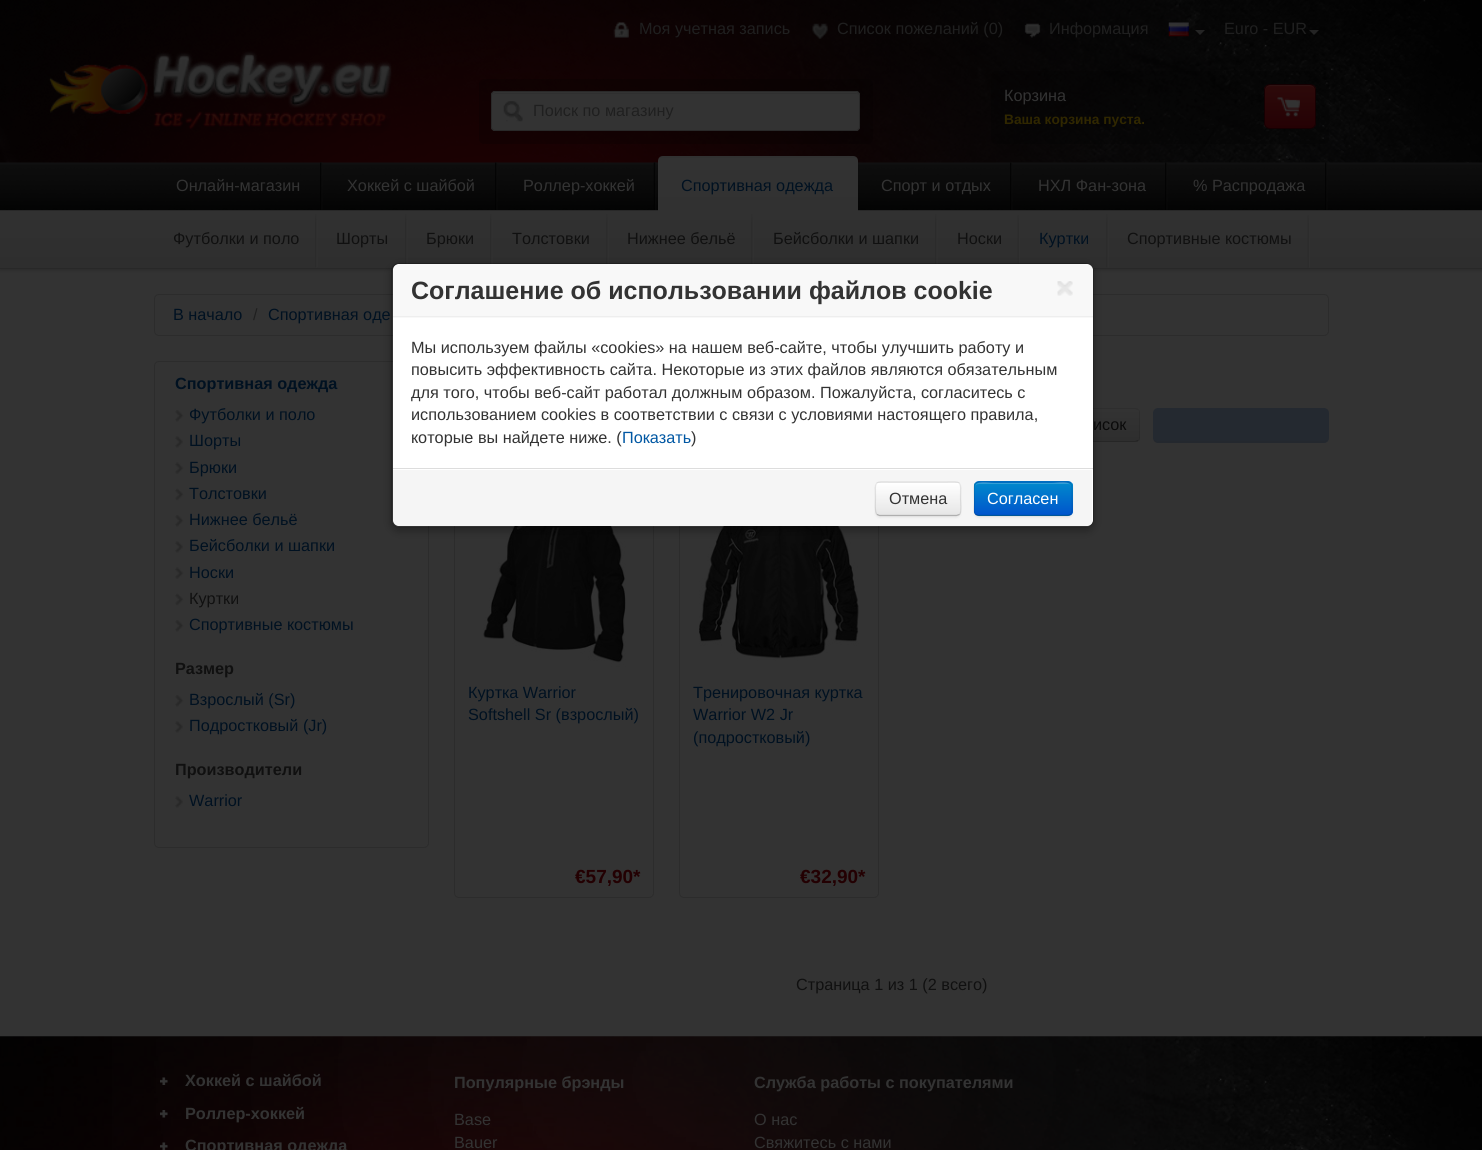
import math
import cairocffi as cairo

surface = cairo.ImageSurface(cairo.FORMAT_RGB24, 1482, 1150)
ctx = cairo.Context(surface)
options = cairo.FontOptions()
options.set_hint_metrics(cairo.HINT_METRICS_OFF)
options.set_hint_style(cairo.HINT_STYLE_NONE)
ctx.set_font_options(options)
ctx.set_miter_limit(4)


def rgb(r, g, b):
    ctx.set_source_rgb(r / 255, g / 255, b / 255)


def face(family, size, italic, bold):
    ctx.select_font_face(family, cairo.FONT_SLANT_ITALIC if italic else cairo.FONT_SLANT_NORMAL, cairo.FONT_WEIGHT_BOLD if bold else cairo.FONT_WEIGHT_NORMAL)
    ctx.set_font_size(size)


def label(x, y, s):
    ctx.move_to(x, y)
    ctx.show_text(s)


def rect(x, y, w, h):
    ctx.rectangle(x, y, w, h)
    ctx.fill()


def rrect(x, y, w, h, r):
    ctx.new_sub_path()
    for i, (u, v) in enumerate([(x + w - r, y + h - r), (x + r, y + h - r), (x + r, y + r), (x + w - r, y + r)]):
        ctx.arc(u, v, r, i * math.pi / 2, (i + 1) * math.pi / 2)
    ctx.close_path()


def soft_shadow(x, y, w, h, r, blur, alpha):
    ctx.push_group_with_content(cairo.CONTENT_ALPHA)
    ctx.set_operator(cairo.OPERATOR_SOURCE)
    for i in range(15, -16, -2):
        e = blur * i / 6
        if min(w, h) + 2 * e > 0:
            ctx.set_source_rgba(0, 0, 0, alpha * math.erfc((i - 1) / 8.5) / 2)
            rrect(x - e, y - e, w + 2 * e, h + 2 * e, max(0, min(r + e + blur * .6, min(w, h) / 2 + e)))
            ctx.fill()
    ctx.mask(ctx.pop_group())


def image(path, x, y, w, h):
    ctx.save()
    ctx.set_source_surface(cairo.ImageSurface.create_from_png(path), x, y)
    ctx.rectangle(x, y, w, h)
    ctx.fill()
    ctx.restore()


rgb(51, 51, 51)
ctx.paint()
image('image0.png', 0, 1036, 1482, 114)
image('image1.png', 0, 0, 1482, 163)
image('image2.png', 613, 22, 16, 16)
face('Liberation Sans', 16.25, 0, 0)
rgb(31, 31, 31)
label(639, 34, 'Моя учетная запись')
image('image3.png', 812, 23, 16, 16)
label(837, 34, 'Список пожеланий (0)')
image('image4.png', 1024, 23, 17, 15)
label(1049, 34, 'Информация')
image('image5.png', 1168, 22, 21, 15)
rgb(36, 36, 36)
ctx.new_path()
ctx.move_to(1195, 30)
ctx.line_to(1205, 30)
ctx.line_to(1200, 35)
ctx.close_path()
ctx.fill()
rgb(31, 31, 31)
label(1224, 34, 'Euro - EUR')
rgb(36, 36, 36)
ctx.new_path()
ctx.move_to(1309, 30)
ctx.line_to(1319, 30)
ctx.line_to(1314, 35)
ctx.close_path()
ctx.fill()
image('image6.png', 49, 64, 99, 50)
image('image7.png', 153, 51, 239, 82)
ctx.set_source_rgba(0, 0, 0, 0.2)
rrect(479, 79, 394, 65, 5)
ctx.fill()
rgb(51, 51, 51)
rrect(491, 91, 369, 40, 4)
ctx.fill()
rgb(47, 47, 47)
ctx.new_path()
ctx.move_to(495, 94)
ctx.line_to(856, 94)
ctx.curve_to(858, 94, 859, 95, 859, 96)
ctx.curve_to(859, 94, 858, 93, 856, 93)
ctx.line_to(496, 93)
ctx.curve_to(494, 93, 494, 94, 493, 95)
ctx.close_path()
ctx.fill()
rrect(491.5, 91.5, 368, 39, 3.5)
rgb(41, 41, 41)
ctx.set_line_width(1)
ctx.stroke()
image('image8.png', 503, 101, 20, 21)
rgb(31, 31, 31)
label(533, 116, 'Поиск по магазину')
ctx.set_source_rgba(0, 0, 0, 0.2)
rrect(991, 71, 338, 73, 5)
ctx.fill()
rgb(51, 51, 51)
label(1004, 101, 'Корзина')
ctx.save()
rrect(1264, 84, 52, 45, 6)
ctx.clip()
gradient = cairo.LinearGradient(1290, 85, 1290, 128)
gradient.add_color_stop_rgba(0, 0.176, 0.039, 0.039, 1)
gradient.add_color_stop_rgba(1, 0.145, 0.004, 0.016, 1)
ctx.set_source(gradient)
rect(1264, 85, 52, 43)
ctx.restore()
rgb(46, 18, 18)
ctx.new_path()
ctx.move_to(1270, 86)
ctx.line_to(1310, 86)
ctx.curve_to(1313, 86, 1315, 88, 1315, 91)
ctx.curve_to(1315, 84, 1309, 85, 1303, 85)
ctx.line_to(1277, 85)
ctx.curve_to(1271, 85, 1265, 84, 1265, 91)
ctx.curve_to(1265, 88, 1267, 86, 1270, 86)
ctx.close_path()
ctx.fill()
rrect(1264.5, 84.5, 51, 44, 5.5)
rgb(21, 0, 2)
ctx.stroke()
image('image9.png', 1277, 97, 23, 20)
face('Liberation Sans', 13.75, 0, 1)
rgb(48, 39, 0)
label(1004, 124, 'Ваша корзина пуста.')
image('image10.png', 0, 162, 1482, 48)
image('image11.png', 320, 162, 3, 48)
face('Liberation Sans', 16.25, 0, 0)
rgb(51, 51, 51)
label(176, 191, 'Онлайн-магазин')
image('image12.png', 495, 162, 3, 48)
label(347, 191, 'Хоккей с шайбой')
image('image13.png', 653, 162, 4, 48)
label(523, 191, 'Роллер-хоккей')
ctx.save()
ctx.new_path()
ctx.move_to(663, 156)
ctx.line_to(853, 156)
ctx.curve_to(856, 156, 858, 158, 858, 161)
ctx.line_to(858, 211)
ctx.line_to(658, 211)
ctx.line_to(658, 161)
ctx.curve_to(658, 158, 660, 156, 663, 156)
ctx.close_path()
ctx.clip()
gradient = cairo.LinearGradient(758, 104, 758, 158)
gradient.add_color_stop_rgba(0, 0.2, 0.2, 0.2, 1)
gradient.add_color_stop_rgba(1, 0.192, 0.192, 0.192, 1)
ctx.set_source(gradient)
rect(658, 156, 200, 2)
ctx.restore()
image('image20.png', 1010, 162, 3, 48)
image('image21.png', 1165, 162, 3, 48)
image('image22.png', 1325, 162, 3, 48)
rgb(0, 0, 0)
soft_shadow(0, 211, 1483, 59, 0, 2, 0.2)
rgb(40, 40, 40)
rect(0, 210, 1482, 1)
ctx.save()
ctx.new_path()
ctx.move_to(663, 156)
ctx.line_to(853, 156)
ctx.curve_to(856, 156, 858, 158, 858, 161)
ctx.line_to(858, 211)
ctx.line_to(658, 211)
ctx.line_to(658, 161)
ctx.curve_to(658, 158, 660, 156, 663, 156)
ctx.close_path()
ctx.clip()
gradient = cairo.LinearGradient(758, 157, 758, 211)
gradient.add_color_stop_rgba(0, 0.2, 0.2, 0.2, 1)
gradient.add_color_stop_rgba(1, 0.192, 0.192, 0.192, 1)
ctx.set_source(gradient)
rect(658, 158, 200, 53)
ctx.restore()
rgb(0, 17, 33)
label(681, 191, 'Спортивная одежда')
rgb(40, 40, 40)
rect(0, 268, 1482, 1)
gradient = cairo.LinearGradient(741, 211, 741, 268)
gradient.add_color_stop_rgba(0, 0.192, 0.192, 0.192, 1)
gradient.add_color_stop_rgba(1, 0.18, 0.18, 0.18, 1)
ctx.set_source(gradient)
rect(0, 211, 1482, 57)
image('image14.png', 315, 214, 3, 54)
rgb(16, 16, 16)
label(173, 244, 'Футболки и поло')
image('image15.png', 405, 214, 3, 50)
label(336, 244, 'Шорты')
image('image15.png', 490, 214, 3, 50)
label(426, 244, 'Брюки')
image('image16.png', 606, 214, 3, 50)
label(512, 244, 'Толстовки')
image('image16.png', 751, 214, 3, 50)
label(627, 244, 'Нижнее бельё')
image('image15.png', 935, 214, 3, 50)
label(773, 244, 'Бейсболки и шапки')
image('image17.png', 1017, 215, 3, 49)
label(957, 244, 'Носки')
image('image18.png', 1106, 214, 3, 54)
rgb(0, 17, 33)
label(1039, 244, 'Куртки')
image('image19.png', 1307, 215, 3, 53)
rgb(16, 16, 16)
label(1127, 244, 'Спортивные костюмы')
rgb(51, 51, 51)
label(881, 191, 'Спорт и отдых')
label(1038, 191, 'НХЛ Фан-зона')
label(1193, 191, '% Распродажа')
rrect(154.5, 294.5, 1174, 41, 4.5)
rgb(44, 44, 44)
ctx.stroke()
rrect(154.5, 361.5, 274, 486, 4.5)
ctx.stroke()
ctx.save()
ctx.new_path()
ctx.move_to(1063, 408)
ctx.line_to(1135, 408)
ctx.curve_to(1138, 408, 1140, 410, 1140, 413)
ctx.line_to(1140, 438)
ctx.curve_to(1140, 441, 1138, 443, 1135, 443)
ctx.line_to(1063, 443)
ctx.close_path()
ctx.clip()
gradient = cairo.LinearGradient(1101, 409, 1101, 441)
gradient.add_color_stop_rgba(0, 0.2, 0.2, 0.2, 1)
gradient.add_color_stop_rgba(1, 0.18, 0.18, 0.18, 1)
ctx.set_source(gradient)
rect(1093, 409, 47, 32)
ctx.restore()
ctx.set_source_rgba(0, 0, 0, 0.1)
ctx.new_path()
ctx.move_to(1064, 409)
ctx.line_to(1135, 409)
ctx.line_to(1138, 410)
ctx.line_to(1138, 409)
ctx.curve_to(1138, 408, 1136, 408, 1135, 408)
ctx.line_to(1063, 408)
ctx.close_path()
ctx.fill()
ctx.set_source_rgba(0, 0, 0, 0.25)
ctx.new_path()
ctx.move_to(1138, 441)
ctx.curve_to(1138, 442, 1136, 442, 1135, 442)
ctx.line_to(1063, 442)
ctx.line_to(1064, 441)
ctx.line_to(1135, 441)
ctx.line_to(1138, 440)
ctx.close_path()
ctx.fill()
rrect(454.5, 474.5, 199, 423, 4.5)
rgb(44, 44, 44)
ctx.stroke()
image('image28.png', 483, 526, 143, 141)
rrect(679.5, 474.5, 199, 423, 4.5)
ctx.stroke()
image('image29.png', 699, 526, 160, 135)
ctx.save()
ctx.set_fill_rule(cairo.FILL_RULE_EVEN_ODD)
ctx.new_path()
ctx.move_to(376, 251)
ctx.line_to(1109, 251)
ctx.line_to(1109, 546)
ctx.line_to(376, 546)
ctx.close_path()
ctx.move_to(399, 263)
ctx.line_to(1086, 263)
ctx.curve_to(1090.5, 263, 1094, 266.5, 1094, 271)
ctx.line_to(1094, 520)
ctx.curve_to(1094, 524.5, 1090.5, 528, 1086, 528)
ctx.line_to(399, 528)
ctx.curve_to(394.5, 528, 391, 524.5, 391, 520)
ctx.line_to(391, 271)
ctx.curve_to(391, 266.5, 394.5, 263, 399, 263)
ctx.close_path()
ctx.clip()
rgb(0, 0, 0)
soft_shadow(391, 266, 703, 265, 8, 4.5, 0.3)
ctx.restore()
rgb(255, 255, 255)
rrect(393, 264, 700, 262, 6)
ctx.fill()
rgb(10, 10, 10)
label(1093, 430, 'исок')
rrect(391.5, 263.5, 702, 264, 7.5)
ctx.set_source_rgba(0, 0, 0, 0.3)
ctx.stroke()
rgb(248, 248, 248)
ctx.new_path()
ctx.move_to(401, 264)
ctx.line_to(1085, 264)
ctx.curve_to(1089.5, 264, 1093, 267.5, 1093, 272)
ctx.line_to(1093, 318)
ctx.line_to(393, 318)
ctx.line_to(393, 272)
ctx.curve_to(393, 267.5, 396.5, 264, 401, 264)
ctx.close_path()
ctx.fill()
rgb(238, 238, 238)
rect(393, 316, 700, 1)
face('Liberation Sans', 25, 0, 1)
rgb(51, 51, 51)
label(411, 299, 'Соглашение об использовании файлов cookie')
image('image23.png', 1057, 281, 16, 15)
face('Liberation Sans', 16.25, 0, 0)
label(411, 353, 'Мы используем файлы «cookies» на нашем веб-сайте, чтобы улучшить работу и')
label(411, 375, 'повысить эффективность сайта. Некоторые из этих файлов являются обязательным')
label(411, 398, 'для того, чтобы веб-сайт работал должным образом. Пожалуйста, согласитесь с')
label(411, 420, 'использованием cookies в соответствии с связи с условиями настоящего правила,')
label(411, 443, 'которые вы найдете ниже. (')
rgb(0, 87, 163)
label(622, 443, 'Показать')
rgb(51, 51, 51)
label(691, 443, ')')
rgb(245, 245, 245)
ctx.new_path()
ctx.move_to(393, 468)
ctx.line_to(1093, 468)
ctx.line_to(1093, 518)
ctx.curve_to(1093, 522.5, 1089.5, 526, 1085, 526)
ctx.line_to(401, 526)
ctx.curve_to(396.5, 526, 393, 522.5, 393, 518)
ctx.close_path()
ctx.fill()
rgb(255, 255, 255)
ctx.new_path()
ctx.move_to(393, 469)
ctx.line_to(393, 470)
ctx.line_to(1092, 470)
ctx.line_to(1092, 522)
ctx.curve_to(1092, 521, 1093, 520, 1093, 518)
ctx.line_to(1093, 469)
ctx.close_path()
ctx.fill()
rgb(221, 221, 221)
rect(393, 468, 700, 1)
rgb(0, 0, 0)
soft_shadow(875, 483, 86, 35, 5, 1, 0.05)
ctx.save()
rrect(875, 481, 86, 35, 5)
ctx.clip()
gradient = cairo.LinearGradient(918, 483, 918, 515)
gradient.add_color_stop_rgba(0, 1, 1, 1, 1)
gradient.add_color_stop_rgba(1, 0.902, 0.902, 0.902, 1)
ctx.set_source(gradient)
rect(875, 483, 86, 32)
ctx.restore()
ctx.new_path()
ctx.move_to(959.5, 514.5)
ctx.line_to(956.5, 515.5)
ctx.line_to(879.5, 515.5)
ctx.line_to(877, 514.5)
ctx.set_source_rgba(0, 0, 0, 0.25)
ctx.set_line_width(1.2)
ctx.stroke()
ctx.new_path()
ctx.move_to(877, 514.5)
ctx.curve_to(874.5, 512, 875.5, 502, 875.5, 499)
ctx.curve_to(875.5, 479.5, 873, 482, 892.5, 482)
ctx.line_to(943.5, 482)
ctx.curve_to(963, 482, 960.5, 479.5, 960.5, 499)
ctx.curve_to(960.5, 502, 962, 512, 959.5, 514.5)
ctx.set_source_rgba(0, 0, 0, 0.1)
ctx.stroke()
rgb(51, 51, 51)
label(889, 504, 'Отмена')
rgb(0, 0, 0)
soft_shadow(974, 483, 99, 35, 5, 1, 0.05)
rgb(0, 116, 204)
rrect(974, 481, 99, 35, 5)
ctx.fill()
ctx.save()
rrect(974, 481, 99, 35, 5)
ctx.clip()
gradient = cairo.LinearGradient(1023, 483, 1023, 515)
gradient.add_color_stop_rgba(0, 0, 0.533, 0.8, 1)
gradient.add_color_stop_rgba(1, 0, 0.333, 0.8, 1)
ctx.set_source(gradient)
rect(974, 483, 99, 32)
ctx.restore()
ctx.set_source_rgba(1, 1, 1, 0.2)
ctx.new_path()
ctx.move_to(979, 484)
ctx.line_to(1068, 484)
ctx.curve_to(1070, 484, 1071, 485, 1071, 488)
ctx.curve_to(1071, 479, 1057, 483, 1052, 483)
ctx.line_to(994, 483)
ctx.curve_to(989, 483, 975, 479, 975, 488)
ctx.curve_to(975, 485, 977, 484, 979, 484)
ctx.close_path()
ctx.fill()
ctx.new_path()
ctx.move_to(1070.5, 514.5)
ctx.curve_to(1070, 515, 1068.5, 515.5, 1067.5, 515.5)
ctx.line_to(979, 515.5)
ctx.curve_to(977.5, 515.5, 976.5, 515, 975.5, 514.5)
ctx.set_source_rgba(0, 0, 0, 0.25)
ctx.stroke()
ctx.new_path()
ctx.move_to(975.5, 514.5)
ctx.curve_to(973, 511.5, 974.5, 506, 974.5, 503)
ctx.curve_to(974.5, 479.5, 970, 482, 993.5, 482)
ctx.line_to(1052.5, 482)
ctx.curve_to(1074, 482, 1072, 479, 1072, 499)
ctx.curve_to(1072, 502, 1073, 512, 1070.5, 514.5)
ctx.set_source_rgba(0, 0, 0, 0.1)
ctx.stroke()
rgb(255, 255, 255)
label(987, 504, 'Согласен')
rgb(0, 17, 33)
label(173, 320, 'В начало')
rgb(31, 31, 31)
label(253, 320, '/')
rgb(0, 17, 33)
label(268, 320, 'Спортивная оде')
face('Liberation Sans', 16.25, 0, 1)
label(175, 389, 'Спортивная одежда')
image('image24.png', 175, 410, 9, 12)
face('Liberation Sans', 16.25, 0, 0)
label(189, 420, 'Футболки и поло')
image('image25.png', 175, 436, 8, 12)
label(189, 446, 'Шорты')
image('image26.png', 175, 462, 9, 12)
label(189, 473, 'Брюки')
image('image27.png', 175, 488, 9, 13)
label(189, 499, 'Толстовки')
image('image24.png', 175, 515, 9, 12)
label(189, 525, 'Нижнее бельё')
image('image25.png', 175, 541, 8, 12)
label(189, 551, 'Бейсболки и шапки')
image('image26.png', 175, 567, 9, 12)
label(189, 578, 'Носки')
image('image27.png', 175, 593, 9, 13)
rgb(16, 16, 16)
label(189, 604, 'Куртки')
image('image24.png', 175, 620, 9, 12)
rgb(0, 17, 33)
label(189, 630, 'Спортивные костюмы')
face('Liberation Sans', 16.25, 0, 1)
rgb(16, 16, 16)
label(175, 674, 'Размер')
image('image24.png', 175, 695, 9, 12)
face('Liberation Sans', 16.25, 0, 0)
rgb(0, 17, 33)
label(189, 705, 'Взрослый (Sr)')
image('image25.png', 175, 721, 8, 12)
label(189, 731, 'Подростковый (Jr)')
face('Liberation Sans', 16.25, 0, 1)
rgb(16, 16, 16)
label(175, 775, 'Производители')
image('image25.png', 175, 796, 8, 12)
face('Liberation Sans', 16.25, 0, 0)
rgb(0, 17, 33)
label(189, 806, 'Warrior')
ctx.set_source_rgba(0, 0, 0, 0.1)
ctx.new_path()
ctx.move_to(1140, 438)
ctx.line_to(1140, 412)
ctx.curve_to(1140, 411, 1139.5, 410, 1138.5, 409)
ctx.line_to(1138, 410)
ctx.curve_to(1138.5, 410, 1139, 411, 1139, 412)
ctx.line_to(1139, 438)
ctx.curve_to(1139, 439, 1138.5, 440, 1138, 440)
ctx.line_to(1138.5, 441)
ctx.curve_to(1139.5, 440, 1140, 439, 1140, 438)
ctx.close_path()
ctx.fill()
rgb(36, 41, 48)
rrect(1153, 408, 176, 35, 5)
ctx.fill()
ctx.new_path()
ctx.move_to(1327, 440.5)
ctx.curve_to(1326, 441.5, 1325, 442, 1324, 442)
ctx.line_to(1157.5, 442)
ctx.curve_to(1156.5, 442, 1155, 441.5, 1154.5, 440.5)
ctx.set_source_rgba(0.141, 0.141, 0.141, 0.25)
ctx.stroke()
rgb(0, 17, 33)
label(468, 698, 'Куртка Warrior')
label(468, 720, 'Softshell Sr (взрослый)')
face('Liberation Sans', 19, 0, 1)
rgb(35, 0, 2)
label(575, 883, '€57,90*')
face('Liberation Sans', 16.25, 0, 0)
rgb(0, 17, 33)
label(693, 698, 'Тренировочная куртка')
label(693, 720, 'Warrior W2 Jr')
label(693, 743, '(подростковый)')
face('Liberation Sans', 19, 0, 1)
rgb(35, 0, 2)
label(800, 883, '€32,90*')
face('Liberation Sans', 16.25, 0, 0)
rgb(16, 16, 16)
label(796, 990, 'Страница 1 из 1 (2 всего)')
image('image30.png', 112, 1036, 1260, 114)
image('image31.png', 160, 1077, 8, 8)
face('Liberation Sans', 16.25, 0, 1)
rgb(51, 51, 51)
label(185, 1086, 'Хоккей с шайбой')
image('image32.png', 160, 1110, 8, 8)
label(185, 1119, 'Роллер-хоккей')
image('image33.png', 160, 1142, 8, 8)
label(185, 1151, 'Спортивная одежда')
label(454, 1088, 'Популярные брэнды')
face('Liberation Sans', 16.25, 0, 0)
label(454, 1125, 'Base')
label(454, 1148, 'Bauer')
face('Liberation Sans', 16.25, 0, 1)
label(754, 1088, 'Служба работы с покупателями')
face('Liberation Sans', 16.25, 0, 0)
label(754, 1125, 'О нас')
label(754, 1148, 'Свяжитесь с нами')
surface.write_to_png('render.png')
